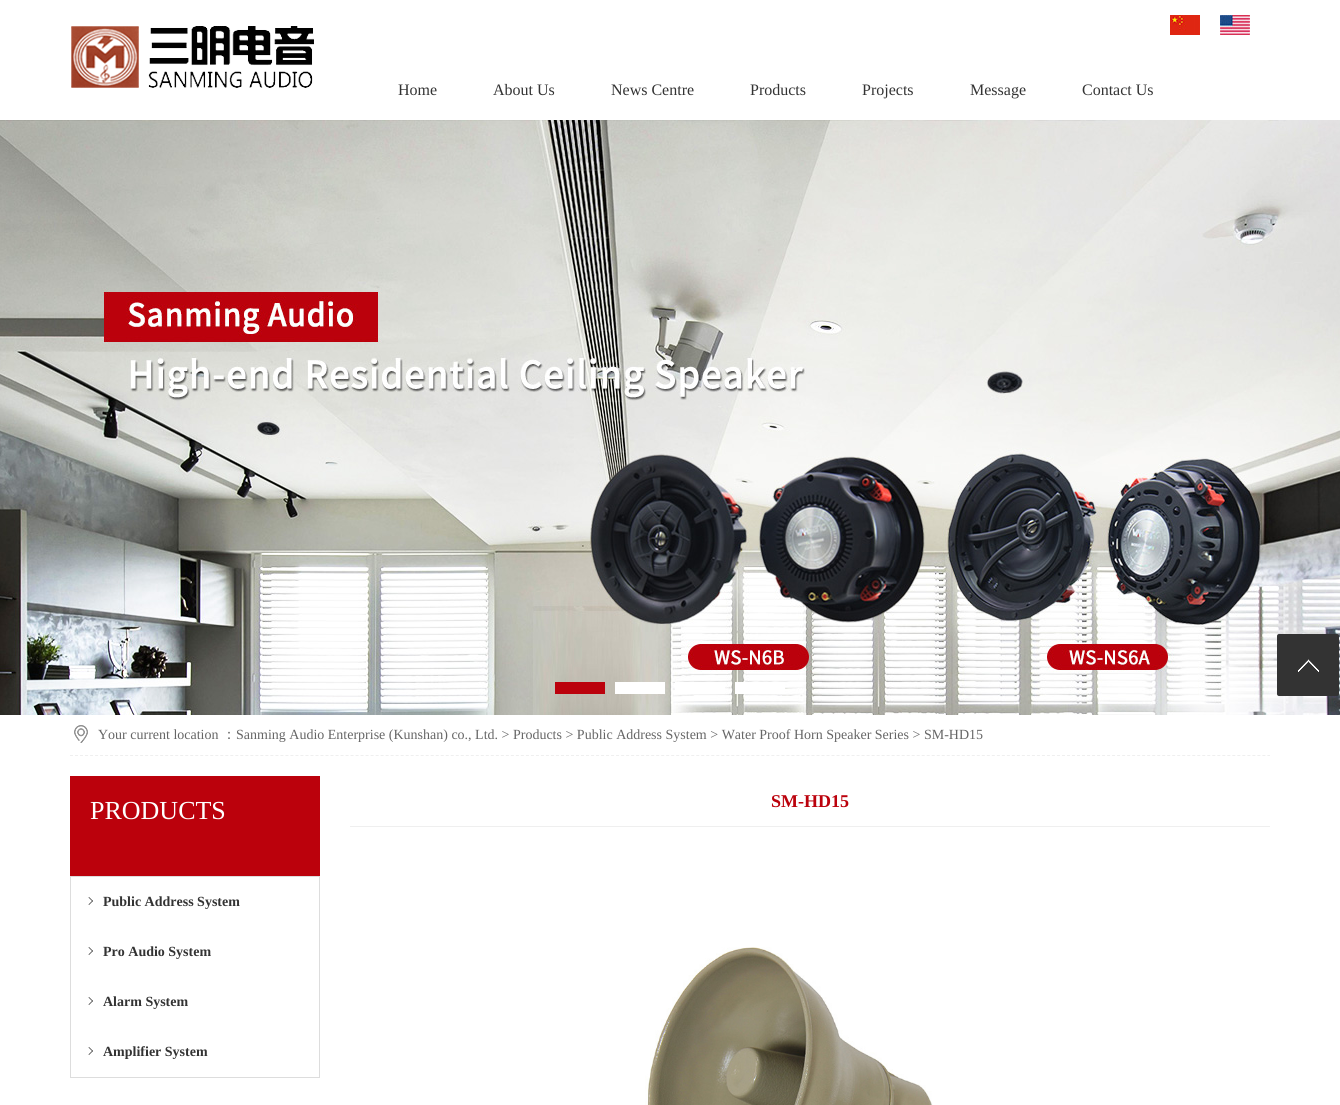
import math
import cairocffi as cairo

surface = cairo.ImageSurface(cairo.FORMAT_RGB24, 1340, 1105)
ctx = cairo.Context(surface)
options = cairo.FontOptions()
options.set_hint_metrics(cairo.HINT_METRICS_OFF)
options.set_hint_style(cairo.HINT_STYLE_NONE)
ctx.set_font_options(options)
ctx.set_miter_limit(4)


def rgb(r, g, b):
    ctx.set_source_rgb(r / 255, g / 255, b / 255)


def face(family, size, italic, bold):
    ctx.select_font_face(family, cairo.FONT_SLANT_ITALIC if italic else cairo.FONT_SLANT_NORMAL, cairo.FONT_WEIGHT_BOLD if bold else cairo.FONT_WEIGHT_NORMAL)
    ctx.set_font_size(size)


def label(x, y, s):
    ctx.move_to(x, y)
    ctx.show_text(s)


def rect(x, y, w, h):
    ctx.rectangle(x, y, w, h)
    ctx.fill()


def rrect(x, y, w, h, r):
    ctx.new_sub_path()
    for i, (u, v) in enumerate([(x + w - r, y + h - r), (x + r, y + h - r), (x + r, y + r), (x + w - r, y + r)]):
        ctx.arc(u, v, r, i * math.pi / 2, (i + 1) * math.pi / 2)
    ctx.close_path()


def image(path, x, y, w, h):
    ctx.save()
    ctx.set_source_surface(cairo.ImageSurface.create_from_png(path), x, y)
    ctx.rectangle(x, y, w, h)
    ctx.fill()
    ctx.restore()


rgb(255, 255, 255)
ctx.paint()
image('image0.png', 71, 26, 243, 62)
image('image1.png', 1170, 15, 30, 20)
image('image2.png', 1220, 15, 30, 20)
face('Liberation Serif', 16, 0, 0)
rgb(51, 51, 51)
label(398, 95, 'Home')
label(493, 95, 'About Us')
label(611, 95, 'News Centre')
label(750, 95, 'Products')
label(862, 95, 'Projects')
label(970, 95, 'Message')
label(1082, 95, 'Contact Us')
image('image3.png', 0, 120, 1340, 595)
rgb(187, 1, 12)
rect(555, 682, 50, 12)
rgb(255, 255, 255)
rect(615, 682, 50, 12)
rect(675, 682, 50, 12)
rect(735, 682, 50, 12)
rgb(51, 51, 51)
rrect(1277, 634, 62, 62, 2)
ctx.fill()
image('image4.png', 1298, 659, 21, 13)
ctx.new_path()
ctx.move_to(70, 755.5)
ctx.line_to(1270, 755.5)
rgb(239, 239, 239)
ctx.set_line_width(1)
ctx.set_dash([3, 2.01])
ctx.stroke()
image('image5.png', 74, 725, 14, 18)
face('Liberation Serif', 14, 0, 0)
rgb(102, 102, 102)
label(98, 739, 'Your current location')
face('WenQuanYi Zen Hei Medium', 14, 0, 0)
label(222, 739, '：')
face('Liberation Serif', 14, 0, 0)
label(236, 739, 'Sanming Audio Enterprise (Kunshan) co., Ltd. > Products > Public Address System > Water Proof Horn Speaker Series > SM-HD15')
rgb(187, 1, 12)
rect(70, 776, 250, 100)
face('Liberation Serif', 26, 0, 0)
rgb(255, 255, 255)
label(90, 819, 'PRODUCTS')
ctx.rectangle(70.5, 876.5, 249, 201)
rgb(221, 221, 221)
ctx.set_dash([])
ctx.stroke()
rgb(51, 51, 51)
ctx.new_path()
ctx.move_to(89, 897)
ctx.line_to(93, 901)
ctx.line_to(92.5, 901.5)
ctx.line_to(88.5, 897.5)
ctx.close_path()
ctx.fill()
ctx.new_path()
ctx.move_to(92.5, 900.5)
ctx.line_to(93, 901)
ctx.line_to(89, 905)
ctx.line_to(88.5, 904.5)
ctx.close_path()
ctx.fill()
face('Liberation Serif', 14, 0, 1)
label(103, 906, 'Public Address System')
ctx.new_path()
ctx.move_to(89, 947)
ctx.line_to(93, 951)
ctx.line_to(92.5, 951.5)
ctx.line_to(88.5, 947.5)
ctx.close_path()
ctx.fill()
ctx.new_path()
ctx.move_to(92.5, 950.5)
ctx.line_to(93, 951)
ctx.line_to(89, 955)
ctx.line_to(88.5, 954.5)
ctx.close_path()
ctx.fill()
label(103, 956, 'Pro Audio System')
ctx.new_path()
ctx.move_to(89, 997)
ctx.line_to(93, 1001)
ctx.line_to(92.5, 1001.5)
ctx.line_to(88.5, 997.5)
ctx.close_path()
ctx.fill()
ctx.new_path()
ctx.move_to(92.5, 1000.5)
ctx.line_to(93, 1001)
ctx.line_to(89, 1005)
ctx.line_to(88.5, 1004.5)
ctx.close_path()
ctx.fill()
label(103, 1006, 'Alarm System')
ctx.new_path()
ctx.move_to(89, 1047)
ctx.line_to(93, 1051)
ctx.line_to(92.5, 1051.5)
ctx.line_to(88.5, 1047.5)
ctx.close_path()
ctx.fill()
ctx.new_path()
ctx.move_to(92.5, 1050.5)
ctx.line_to(93, 1051)
ctx.line_to(89, 1055)
ctx.line_to(88.5, 1054.5)
ctx.close_path()
ctx.fill()
label(103, 1056, 'Amplifier System')
rgb(239, 239, 239)
rect(350, 826, 920, 1)
face('Liberation Serif', 18, 0, 1)
rgb(187, 1, 12)
label(771, 807, 'SM-HD15')
image('image6.png', 645, 947, 288, 158)
surface.write_to_png('render.png')
